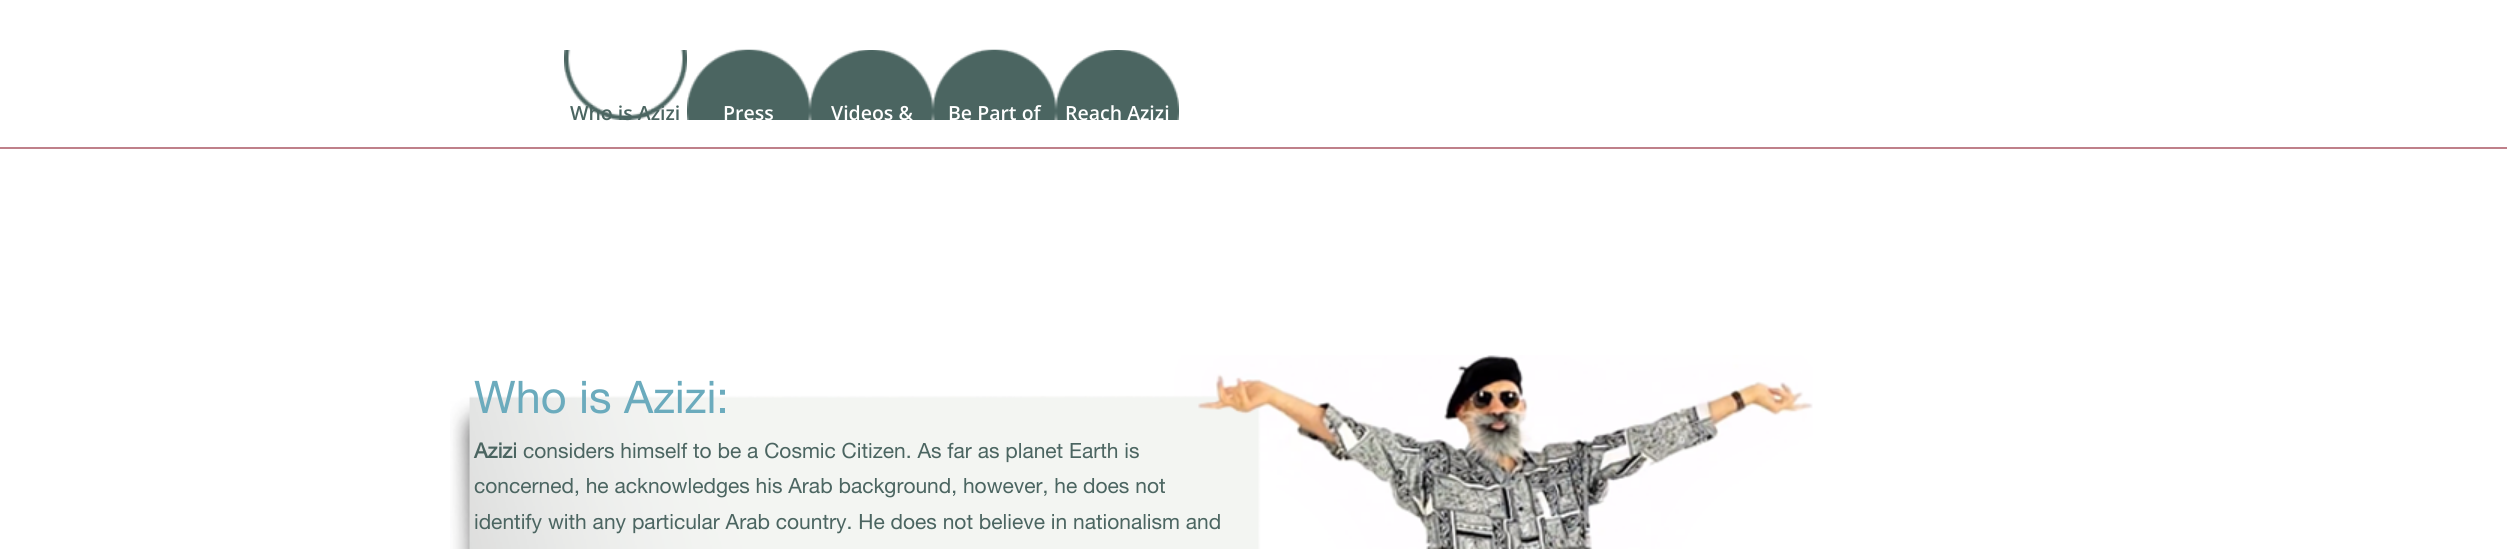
import math
import cairocffi as cairo

surface = cairo.ImageSurface(cairo.FORMAT_RGB24, 2507, 549)
ctx = cairo.Context(surface)
options = cairo.FontOptions()
options.set_hint_metrics(cairo.HINT_METRICS_OFF)
options.set_hint_style(cairo.HINT_STYLE_NONE)
ctx.set_font_options(options)
ctx.set_miter_limit(4)


def rgb(r, g, b):
    ctx.set_source_rgb(r / 255, g / 255, b / 255)


def face(family, size, italic, bold):
    ctx.select_font_face(family, cairo.FONT_SLANT_ITALIC if italic else cairo.FONT_SLANT_NORMAL, cairo.FONT_WEIGHT_BOLD if bold else cairo.FONT_WEIGHT_NORMAL)
    ctx.set_font_size(size)


def label(x, y, s):
    ctx.move_to(x, y)
    ctx.show_text(s)


def rect(x, y, w, h):
    ctx.rectangle(x, y, w, h)
    ctx.fill()


def image(path, x, y, w, h):
    ctx.save()
    ctx.set_source_surface(cairo.ImageSurface.create_from_png(path), x, y)
    ctx.rectangle(x, y, w, h)
    ctx.fill()
    ctx.restore()


rgb(255, 255, 255)
ctx.paint()
rgb(191, 128, 138)
rect(0, 147, 2507, 2)
image('image0.png', 564, 50, 123, 70)
face('Open Sans SemiBold', 19.5, 0, 0)
rgb(75, 101, 97)
label(570, 120, 'Who is Azizi')
image('image1.png', 687, 49, 123, 71)
rgb(255, 255, 255)
label(723, 120, 'Press')
image('image2.png', 810, 50, 123, 70)
label(831, 120, 'Videos &')
image('image1.png', 933, 49, 123, 71)
label(948, 120, 'Be Part of')
image('image3.png', 1056, 50, 123, 70)
label(1065, 120, 'Reach Azizi')
image('image4.png', 450, 355, 1363, 194)
face('Helvetica Neue', 45, 0, 0)
rgb(107, 171, 189)
label(474, 413, 'Who is Azizi:')
face('Helvetica Neue', 21, 0, 1)
rgb(75, 101, 97)
label(474, 458, 'Azizi')
face('Helvetica Neue', 21, 0, 0)
label(523, 458, 'considers himself to be a Cosmic Citizen. As far as planet Earth is')
label(474, 493, 'concerned, he acknowledges his Arab background, however, he does not')
label(474, 529, 'identify with any particular Arab country. He does not believe in nationalism and')
surface.write_to_png('render.png')
